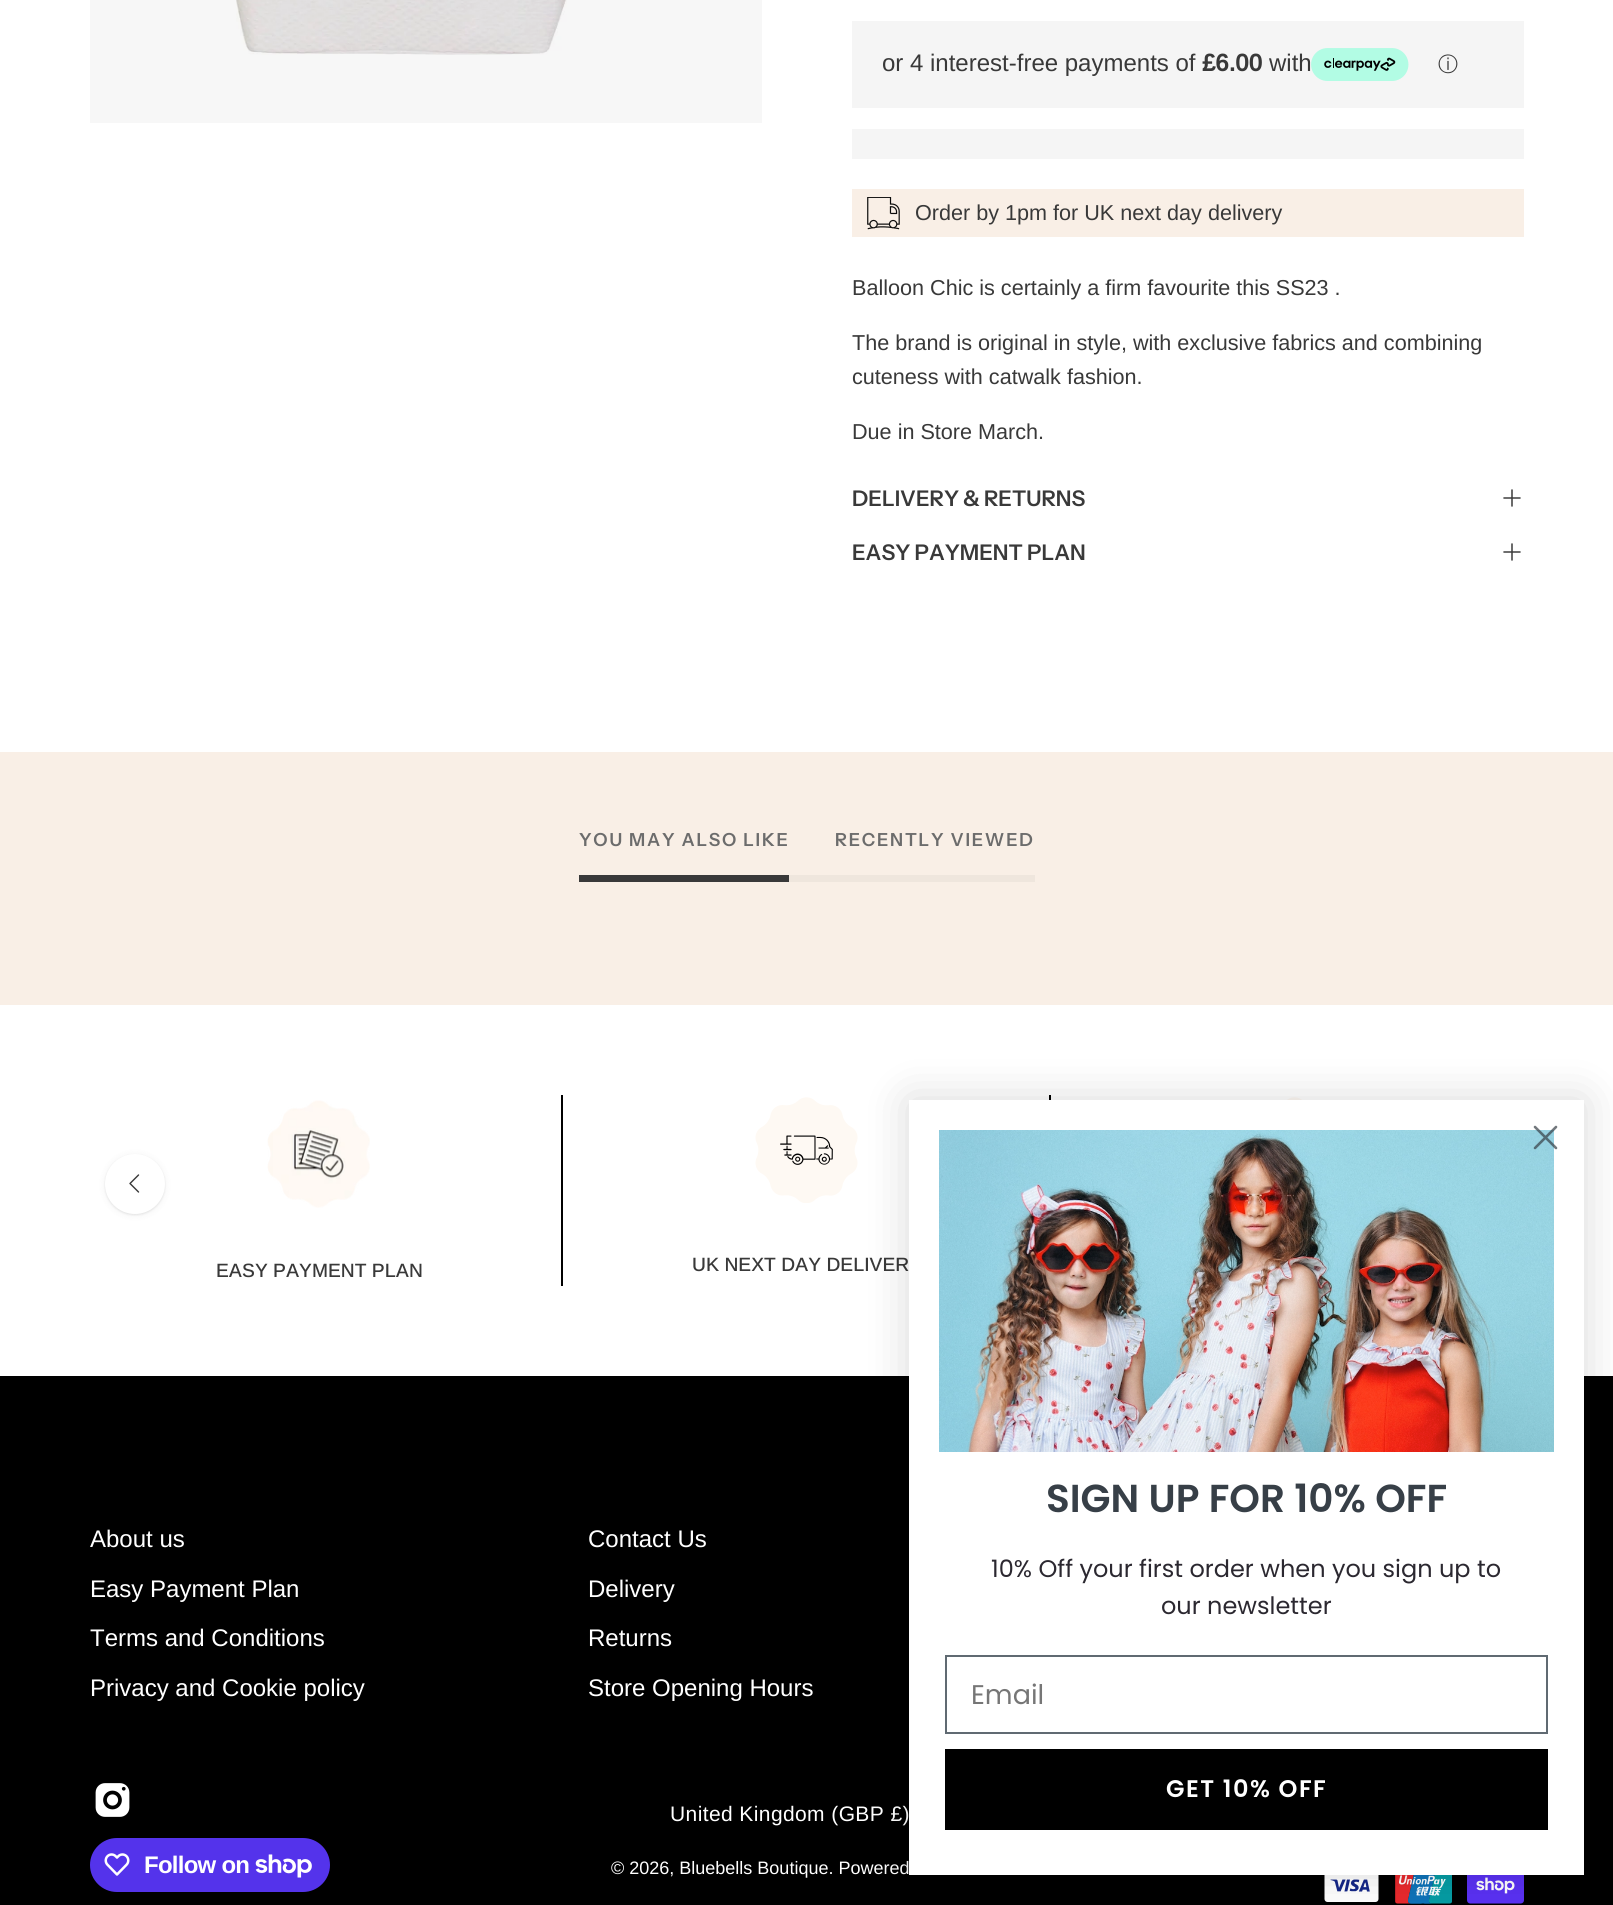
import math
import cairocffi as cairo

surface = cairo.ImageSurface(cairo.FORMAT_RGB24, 1613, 1905)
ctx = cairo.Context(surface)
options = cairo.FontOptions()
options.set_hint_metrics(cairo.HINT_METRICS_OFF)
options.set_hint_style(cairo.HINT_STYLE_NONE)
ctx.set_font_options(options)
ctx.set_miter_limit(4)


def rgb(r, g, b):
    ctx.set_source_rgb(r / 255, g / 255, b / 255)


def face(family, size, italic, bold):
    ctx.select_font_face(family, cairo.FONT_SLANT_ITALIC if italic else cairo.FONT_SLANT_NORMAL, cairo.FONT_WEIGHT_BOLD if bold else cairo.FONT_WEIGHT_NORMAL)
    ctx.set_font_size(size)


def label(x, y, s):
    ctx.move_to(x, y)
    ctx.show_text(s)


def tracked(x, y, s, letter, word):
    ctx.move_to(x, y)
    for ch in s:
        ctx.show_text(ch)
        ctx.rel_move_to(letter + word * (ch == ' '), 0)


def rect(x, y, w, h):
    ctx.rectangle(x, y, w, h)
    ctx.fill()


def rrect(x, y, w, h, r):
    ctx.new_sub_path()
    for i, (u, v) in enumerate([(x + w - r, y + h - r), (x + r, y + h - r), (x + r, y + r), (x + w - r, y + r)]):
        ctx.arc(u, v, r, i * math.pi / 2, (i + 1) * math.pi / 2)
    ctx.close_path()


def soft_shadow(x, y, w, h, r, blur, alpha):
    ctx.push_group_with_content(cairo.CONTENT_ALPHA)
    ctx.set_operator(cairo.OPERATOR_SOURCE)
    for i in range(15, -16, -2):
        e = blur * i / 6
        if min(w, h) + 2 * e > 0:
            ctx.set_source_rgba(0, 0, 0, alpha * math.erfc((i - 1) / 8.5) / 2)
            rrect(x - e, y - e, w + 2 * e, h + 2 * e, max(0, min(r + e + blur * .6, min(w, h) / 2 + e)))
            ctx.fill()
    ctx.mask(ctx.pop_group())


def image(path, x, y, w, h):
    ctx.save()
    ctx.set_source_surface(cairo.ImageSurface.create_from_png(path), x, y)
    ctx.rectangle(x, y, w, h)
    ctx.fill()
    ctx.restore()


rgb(255, 255, 255)
ctx.paint()
rgb(247, 247, 247)
rect(90, 0, 672, 123)
image('image0.png', 236, 0, 331, 55)
rgb(245, 245, 245)
rect(852, 21, 672, 87)
face('Arimo', 24, 0, 0)
rgb(57, 57, 57)
label(882, 71, 'or 4 interest-free payments of')
face('Arimo', 24, 0, 1)
label(1202, 71, '£6.00')
face('Arimo', 24, 0, 0)
label(1269, 71, 'with')
image('image1.png', 1311, 48, 98, 33)
face('WenQuanYi Zen Hei Medium', 20, 0, 0)
label(1438, 71, 'ⓘ')
rgb(245, 245, 245)
rect(852, 129, 672, 30)
rgb(249, 239, 230)
rect(852, 189, 672, 48)
image('image2.png', 867, 197, 33, 33)
face('Arimo', 21.6, 0, 0)
rgb(57, 57, 57)
label(915, 220, 'Order by 1pm for UK next day delivery')
label(852, 295, 'Balloon Chic is certainly a firm favourite this SS23 .')
label(852, 350, 'The brand is original in style, with exclusive fabrics and combining')
label(852, 384, 'cuteness with catwalk fashion.')
label(852, 439, 'Due in Store March.')
face('Instrument Sans SemiBold', 21.6, 0, 0)
label(852, 506, 'DELIVERY & RETURNS')
ctx.new_path()
ctx.move_to(1504, 498)
ctx.line_to(1520, 498)
ctx.move_to(1512, 490)
ctx.line_to(1512, 506)
ctx.set_line_width(1.5)
ctx.set_line_cap(cairo.LINE_CAP_ROUND)
ctx.set_line_join(cairo.LINE_JOIN_ROUND)
ctx.stroke()
label(852, 560, 'EASY PAYMENT PLAN')
ctx.new_path()
ctx.move_to(1504, 552)
ctx.line_to(1520, 552)
ctx.move_to(1512, 544)
ctx.line_to(1512, 560)
ctx.stroke()
rgb(249, 239, 230)
rect(0, 752, 1613, 253)
face('Instrument Sans SemiBold', 18, 0, 0)
rgb(108, 108, 108)
tracked(579, 846, 'YOU MAY ALSO LIKE', 1.75, 0)
tracked(835, 846, 'RECENTLY VIEWED', 1.75, 0)
rgb(239, 230, 221)
rect(789, 875, 246, 7)
rgb(57, 57, 57)
rect(579, 875, 210, 7)
rgb(0, 0, 0)
soft_shadow(105, 1155, 60, 60, 30, 4, 0.06)
soft_shadow(105, 1155, 60, 60, 30, 1, 0.08)
rgb(255, 255, 255)
ctx.arc(135, 1184, 30, 0, 2 * math.pi)
ctx.fill()
ctx.new_path()
ctx.move_to(138.5, 1192)
ctx.line_to(130, 1183.5)
ctx.line_to(138.5, 1175)
rgb(57, 57, 57)
ctx.set_line_width(1.4)
ctx.stroke()
image('image3.png', 1287, 1097, 15, 3)
image('image4.png', 267, 1100, 103, 108)
face('Arimo Medium', 19.25, 0, 0)
label(216, 1277, 'EASY PAYMENT PLAN')
rgb(0, 0, 0)
rect(561, 1095, 2, 191)
rect(1049, 1095, 2, 5)
image('image5.png', 755, 1097, 103, 106)
rgb(57, 57, 57)
label(692, 1271, 'UK NEXT DAY DELIVER')
rgb(0, 0, 0)
rect(0, 1376, 1613, 529)
face('Arimo', 24, 0, 0)
rgb(255, 255, 255)
label(90, 1547, 'About us')
label(90, 1597, 'Easy Payment Plan')
label(90, 1646, 'Terms and Conditions')
label(90, 1696, 'Privacy and Cookie policy')
label(588, 1547, 'Contact Us')
label(588, 1597, 'Delivery')
label(588, 1646, 'Returns')
label(588, 1696, 'Store Opening Hours')
image('image6.png', 95, 1783, 35, 34)
rgb(84, 51, 235)
rrect(90, 1838, 240, 54, 27)
ctx.fill()
image('image7.png', 104, 1853, 26, 23)
face('Liberation Sans', 24, 0, 1)
rgb(255, 255, 255)
tracked(144, 1873, 'Follow on', -0.75, 0)
image('image8.png', 255, 1854, 57, 24)
face('Arimo', 21, 0, 0)
tracked(670, 1821, 'United Kingdom (GBP £)', 0.4, 0)
face('Arimo', 18, 0, 0)
label(611, 1874, '© 2026, Bluebells Boutique. Powered')
image('image9.png', 1324, 1875, 55, 27)
image('image10.png', 1395, 1875, 57, 29)
image('image11.png', 1467, 1875, 57, 29)
rgb(0, 0, 0)
soft_shadow(909, 1100, 675, 775, 0, 22.5, 0.15)
rgb(255, 255, 255)
rect(909, 1100, 675, 775)
image('image12.png', 939, 1130, 615, 322)
ctx.new_path()
ctx.move_to(1535, 1127)
ctx.line_to(1556, 1148)
ctx.move_to(1535, 1148)
ctx.line_to(1556, 1127)
ctx.close_path()
ctx.set_source_rgba(0.216, 0.247, 0.278, 0.7)
ctx.set_line_width(2.6)
ctx.stroke()
face('Poppins SemiBold', 39, 0, 0)
rgb(55, 63, 71)
label(1046, 1512, 'SIGN UP FOR 10% OFF')
face('Poppins', 24, 0, 0)
rgb(43, 40, 48)
label(991, 1577, '10% Off your first order when you sign up to')
label(1161, 1614, 'our newsletter')
ctx.rectangle(946, 1656, 601, 77)
rgb(96, 106, 114)
ctx.set_line_width(2)
ctx.set_line_cap(cairo.LINE_CAP_BUTT)
ctx.set_line_join(cairo.LINE_JOIN_MITER)
ctx.stroke()
face('Poppins', 27, 0, 0)
rgb(118, 118, 118)
label(971, 1704, 'Email')
rgb(0, 0, 0)
rect(945, 1749, 603, 81)
face('Poppins SemiBold', 24, 0, 0)
rgb(255, 255, 255)
tracked(1166, 1797, 'GET 10% OFF', 1.5, 0)
surface.write_to_png('render.png')
